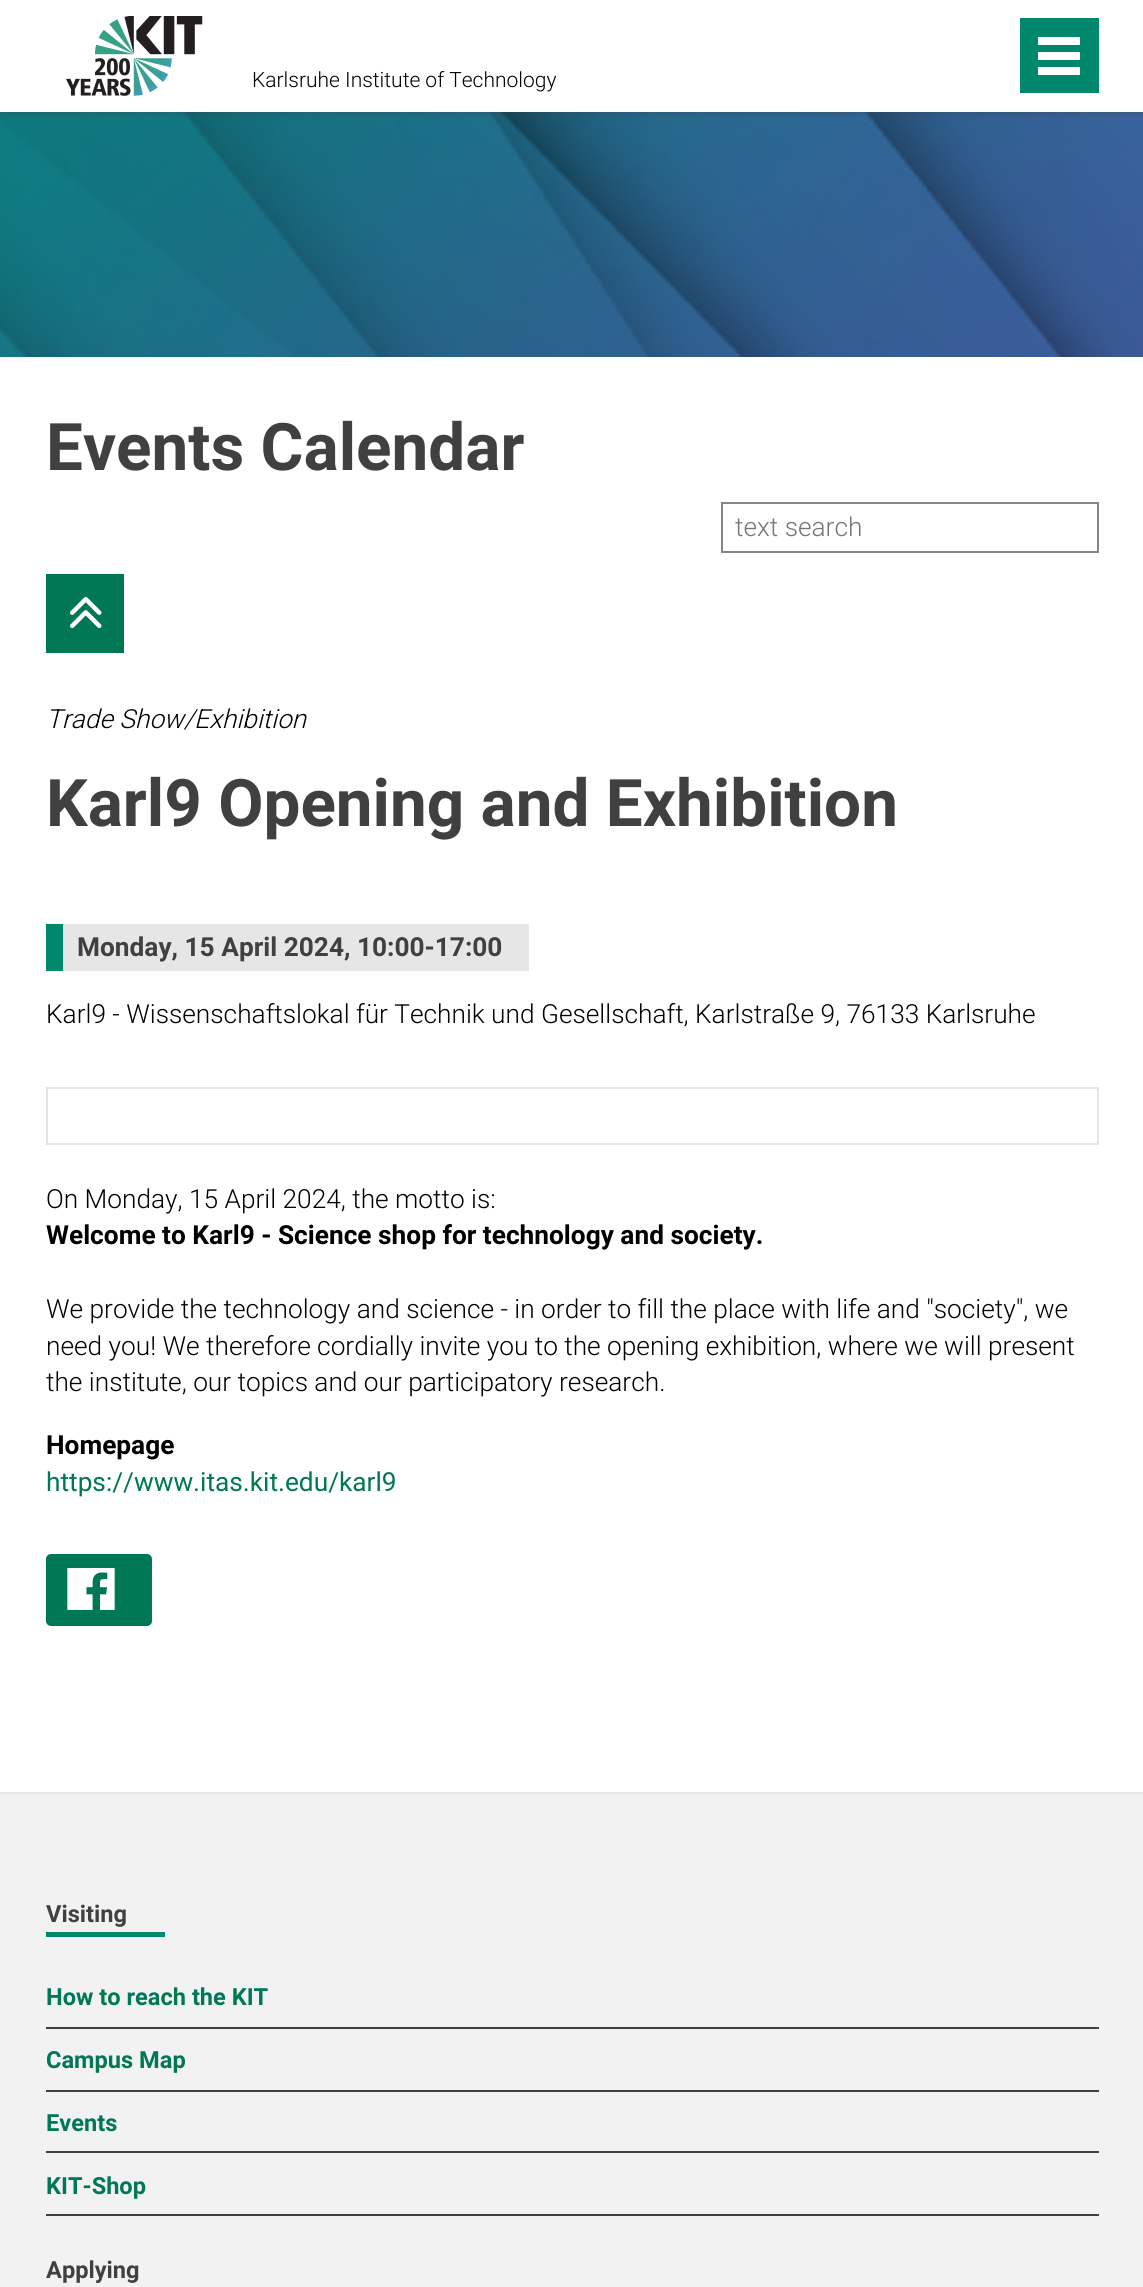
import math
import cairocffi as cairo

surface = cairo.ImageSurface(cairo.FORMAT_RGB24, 1143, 2287)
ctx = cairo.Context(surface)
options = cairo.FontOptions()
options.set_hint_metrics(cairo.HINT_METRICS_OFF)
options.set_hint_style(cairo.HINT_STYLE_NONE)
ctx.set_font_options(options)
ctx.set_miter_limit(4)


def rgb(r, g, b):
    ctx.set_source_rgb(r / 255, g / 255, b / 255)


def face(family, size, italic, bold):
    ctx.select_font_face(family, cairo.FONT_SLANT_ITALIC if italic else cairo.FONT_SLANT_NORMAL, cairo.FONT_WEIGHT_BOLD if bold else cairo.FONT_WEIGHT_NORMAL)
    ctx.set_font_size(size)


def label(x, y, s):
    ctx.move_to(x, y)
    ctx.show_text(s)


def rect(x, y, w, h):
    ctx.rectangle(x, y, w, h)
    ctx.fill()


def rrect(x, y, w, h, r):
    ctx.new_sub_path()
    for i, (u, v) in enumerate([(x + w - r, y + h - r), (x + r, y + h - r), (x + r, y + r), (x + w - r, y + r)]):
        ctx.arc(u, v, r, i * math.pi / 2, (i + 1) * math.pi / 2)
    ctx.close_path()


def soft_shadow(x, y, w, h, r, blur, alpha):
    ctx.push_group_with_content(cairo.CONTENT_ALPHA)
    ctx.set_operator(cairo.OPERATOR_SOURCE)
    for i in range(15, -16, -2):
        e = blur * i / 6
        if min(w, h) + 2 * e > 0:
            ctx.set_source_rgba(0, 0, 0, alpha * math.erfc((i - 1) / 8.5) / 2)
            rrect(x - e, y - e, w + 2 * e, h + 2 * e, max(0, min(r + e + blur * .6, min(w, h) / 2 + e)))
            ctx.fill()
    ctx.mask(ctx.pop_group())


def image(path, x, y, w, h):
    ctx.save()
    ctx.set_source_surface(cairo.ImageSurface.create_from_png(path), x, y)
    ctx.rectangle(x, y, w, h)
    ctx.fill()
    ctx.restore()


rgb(255, 255, 255)
ctx.paint()
image('image1.png', 0, 112, 1143, 245)
ctx.save()
ctx.rectangle(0, 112, 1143, 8)
ctx.clip()
rgb(64, 64, 64)
soft_shadow(0, 0, 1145, 112, 0, 4.5, 0.5)
ctx.restore()
image('image0.png', 66, 16, 137, 80)
face('Roboto Light', 21, 0, 0)
rgb(0, 0, 0)
label(252, 87, 'Karlsruhe Institute of Technology')
rgb(0, 135, 108)
rect(1020, 18, 79, 75)
rgb(255, 255, 255)
rect(1038, 67, 42, 8)
rect(1038, 52, 42, 8)
rect(1038, 37, 42, 8)
face('Roboto', 65.6, 0, 1)
rgb(64, 64, 64)
label(46, 470, 'Events Calendar')
ctx.rectangle(722, 503, 376, 49)
rgb(134, 134, 134)
ctx.stroke()
face('Roboto Light', 26.25, 0, 0)
rgb(117, 117, 117)
label(735, 536, 'text search')
rgb(0, 119, 85)
rect(46, 574, 78, 79)
image('image2.png', 70, 597, 32, 31)
face('Roboto Light', 26.25, 1, 0)
rgb(0, 0, 0)
label(46, 728, 'Trade Show/Exhibition')
face('Roboto', 65.6, 0, 1)
rgb(64, 64, 64)
label(46, 826, 'Karl9 Opening and Exhibition')
rgb(230, 230, 230)
rect(63, 924, 466, 47)
rgb(0, 135, 108)
rect(46, 924, 17, 47)
face('Roboto', 26.25, 0, 1)
rgb(64, 64, 64)
label(77, 956, 'Monday, 15 April 2024, 10:00-17:00')
face('Roboto Light', 26.25, 0, 0)
rgb(0, 0, 0)
label(46, 1023, 'Karl9 - Wissenschaftslokal für Technik und Gesellschaft, Karlstraße 9, 76133 Karlsruhe')
ctx.rectangle(47, 1088, 1051, 56)
rgb(230, 230, 230)
ctx.stroke()
rgb(0, 0, 0)
label(46, 1208, 'On Monday, 15 April 2024, the motto is:')
face('Roboto', 26.25, 0, 1)
label(46, 1244, 'Welcome to Karl9 - Science shop for technology and society.')
face('Roboto Light', 26.25, 0, 0)
label(46, 1318, 'We provide the technology and science - in order to fill the place with life and "society", we')
label(46, 1355, 'need you! We therefore cordially invite you to the opening exhibition, where we will present')
label(46, 1391, 'the institute, our topics and our participatory research.')
face('Roboto', 26.25, 0, 1)
label(46, 1454, 'Homepage')
face('Roboto', 26.25, 0, 0)
rgb(0, 119, 85)
label(46, 1491, 'https://www.itas.kit.edu/karl9')
rrect(46, 1554, 106, 72, 5)
ctx.fill()
image('image3.png', 67, 1568, 48, 42)
rgb(242, 242, 242)
rect(0, 1794, 1143, 493)
rgb(230, 230, 230)
rect(0, 1792, 1143, 2)
face('Roboto', 23.6, 0, 1)
rgb(64, 64, 64)
label(46, 1922, 'Visiting')
rgb(0, 135, 108)
rect(46, 1932, 119, 5)
rgb(64, 64, 64)
rect(46, 2027, 1053, 2)
rgb(0, 119, 85)
label(46, 2005, 'How to reach the KIT')
rgb(64, 64, 64)
rect(46, 2090, 1053, 2)
rgb(0, 119, 85)
label(46, 2068, 'Campus Map')
rgb(64, 64, 64)
rect(46, 2151, 1053, 2)
rgb(0, 119, 85)
label(46, 2131, 'Events')
rgb(64, 64, 64)
rect(46, 2214, 1053, 2)
rgb(0, 119, 85)
label(46, 2194, 'KIT-Shop')
rgb(64, 64, 64)
label(46, 2278, 'Applying')
surface.write_to_png('render.png')
